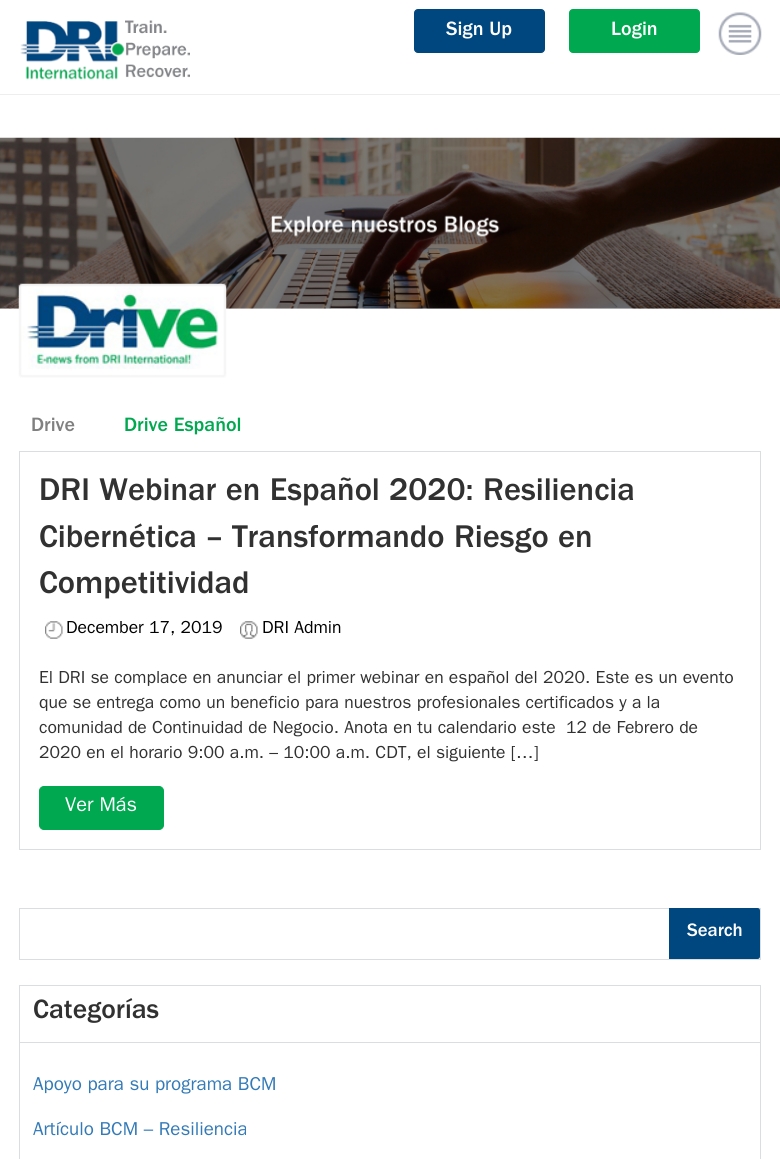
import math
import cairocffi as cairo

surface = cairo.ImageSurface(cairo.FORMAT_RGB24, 780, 1159)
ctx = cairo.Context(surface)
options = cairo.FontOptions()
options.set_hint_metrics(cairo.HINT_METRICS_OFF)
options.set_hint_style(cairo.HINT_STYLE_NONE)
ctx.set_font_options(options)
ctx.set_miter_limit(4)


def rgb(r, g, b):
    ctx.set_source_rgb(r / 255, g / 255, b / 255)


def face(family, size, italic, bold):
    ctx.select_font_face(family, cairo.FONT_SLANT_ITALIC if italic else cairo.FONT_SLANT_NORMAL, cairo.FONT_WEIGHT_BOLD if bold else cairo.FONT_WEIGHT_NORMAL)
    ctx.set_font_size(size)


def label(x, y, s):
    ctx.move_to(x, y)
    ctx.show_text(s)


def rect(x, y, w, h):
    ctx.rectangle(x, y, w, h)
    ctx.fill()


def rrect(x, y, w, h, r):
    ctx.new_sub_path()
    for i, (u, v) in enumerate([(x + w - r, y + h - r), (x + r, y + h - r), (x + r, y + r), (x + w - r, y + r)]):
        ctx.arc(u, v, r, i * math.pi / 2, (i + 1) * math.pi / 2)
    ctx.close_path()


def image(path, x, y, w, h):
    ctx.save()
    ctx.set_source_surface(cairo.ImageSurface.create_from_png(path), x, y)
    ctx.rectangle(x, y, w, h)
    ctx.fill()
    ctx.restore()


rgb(255, 255, 255)
ctx.paint()
rgb(238, 238, 238)
rect(0, 94, 780, 1)
image('image0.png', 20, 21, 105, 59)
image('image1.png', 125, 20, 65, 58)
rgb(0, 71, 127)
rrect(414.5, 9.5, 130, 43, 3.5)
ctx.fill_preserve()
ctx.set_line_width(1)
ctx.stroke()
face('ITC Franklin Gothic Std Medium', 20, 0, 0)
rgb(255, 255, 255)
label(446, 35, 'Sign Up')
rgb(0, 168, 80)
rrect(569.5, 9.5, 130, 43, 3.5)
ctx.fill_preserve()
ctx.stroke()
rgb(255, 255, 255)
label(611, 35, 'Login')
image('image2.png', 718, 12, 44, 43)
image('image3.png', 0, 137, 780, 172)
image('image4.png', 18, 283, 209, 95)
rgb(128, 128, 128)
label(31, 431, 'Drive')
rgb(0, 168, 80)
label(124, 431, 'Drive Español')
ctx.rectangle(19.5, 451.5, 741, 398)
rgb(218, 222, 225)
ctx.stroke()
face('ITC Franklin Gothic Std Medium', 32.5, 0, 0)
rgb(49, 49, 49)
label(39, 500, 'DRI Webinar en Español 2020: Resiliencia')
label(39, 547, 'Cibernética – Transformando Riesgo en')
label(39, 593, 'Competitividad')
image('image5.png', 45, 621, 18, 18)
face('ITC Franklin Gothic Std', 17.5, 0, 0)
rgb(0, 0, 0)
label(66, 633, 'December 17, 2019')
image('image6.png', 240, 621, 18, 18)
label(262, 633, 'DRI Admin')
rgb(49, 49, 49)
label(39, 683, 'El DRI se complace en anunciar el primer webinar en español del 2020. Este es un evento')
label(39, 708, 'que se entrega como un beneficio para nuestros profesionales certificados y a la')
label(39, 733, 'comunidad de Continuidad de Negocio. Anota en tu calendario este  12 de Febrero de')
label(39, 758, '2020 en el horario 9:00 a.m. – 10:00 a.m. CDT, el siguiente […]')
rgb(0, 168, 80)
rrect(39.5, 786.5, 124, 43, 4.5)
ctx.fill_preserve()
ctx.stroke()
face('ITC Franklin Gothic Std', 20, 0, 0)
rgb(255, 255, 255)
label(65, 811, 'Ver Más')
ctx.rectangle(19.5, 908.5, 741, 51)
rgb(218, 222, 225)
ctx.stroke()
rgb(0, 71, 127)
ctx.new_path()
ctx.move_to(669, 908)
ctx.line_to(757.5, 908)
ctx.curve_to(759, 908, 760, 909, 760, 910.5)
ctx.line_to(760, 956.5)
ctx.curve_to(760, 958, 759, 959, 757.5, 959)
ctx.line_to(669, 959)
ctx.close_path()
ctx.fill()
face('ITC Franklin Gothic Std Medium', 18.75, 0, 0)
rgb(255, 255, 255)
label(687, 936, 'Search')
ctx.rectangle(19.5, 985.5, 741, 57)
rgb(218, 222, 225)
ctx.stroke()
face('ITC Franklin Gothic Std Medium', 27.5, 0, 0)
rgb(49, 49, 49)
label(33, 1018, 'Categorías')
rgb(218, 222, 225)
rect(760, 1043, 1, 116)
rect(19, 1043, 1, 116)
face('ITC Franklin Gothic Std', 18.75, 0, 0)
rgb(51, 122, 183)
label(33, 1090, 'Apoyo para su programa BCM')
label(33, 1135, 'Artículo BCM – Resiliencia')
surface.write_to_png('render.png')
